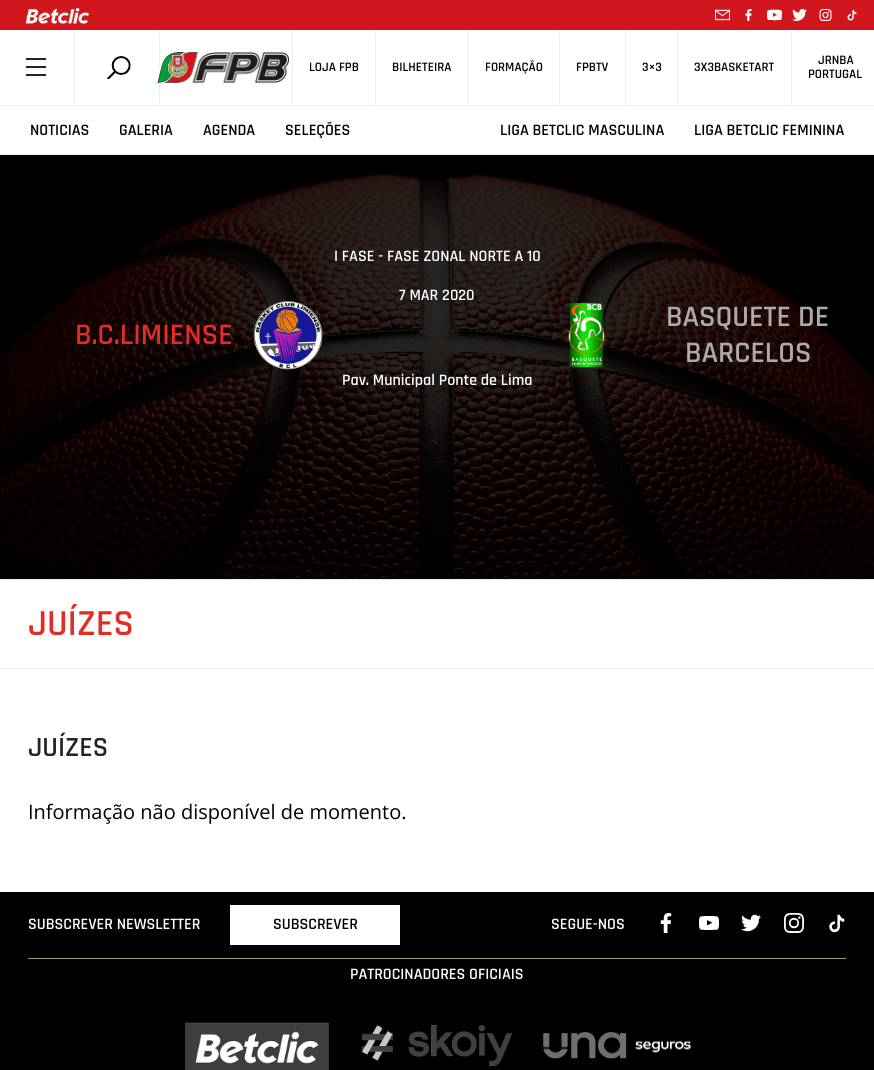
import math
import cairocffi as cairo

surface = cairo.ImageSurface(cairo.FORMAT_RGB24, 874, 1070)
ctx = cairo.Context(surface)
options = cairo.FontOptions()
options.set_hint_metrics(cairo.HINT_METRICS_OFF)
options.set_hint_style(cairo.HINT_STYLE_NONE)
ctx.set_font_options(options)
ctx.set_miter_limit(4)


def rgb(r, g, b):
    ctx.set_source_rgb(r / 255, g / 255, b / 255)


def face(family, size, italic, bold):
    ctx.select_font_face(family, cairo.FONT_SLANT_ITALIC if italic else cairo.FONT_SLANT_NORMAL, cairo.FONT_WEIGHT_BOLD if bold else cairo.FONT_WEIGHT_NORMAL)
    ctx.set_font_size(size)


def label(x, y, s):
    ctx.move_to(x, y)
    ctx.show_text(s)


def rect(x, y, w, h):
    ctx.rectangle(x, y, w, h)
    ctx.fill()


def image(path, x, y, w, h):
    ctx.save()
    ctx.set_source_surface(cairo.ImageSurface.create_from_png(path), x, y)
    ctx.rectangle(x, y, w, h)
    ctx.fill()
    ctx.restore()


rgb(255, 255, 255)
ctx.paint()
rgb(238, 238, 238)
rect(0, 154, 874, 1)
rgb(210, 22, 30)
rect(0, 0, 874, 30)
image('image0.png', 25, 8, 64, 16)
image('image1.png', 715, 9, 15, 12)
image('image2.png', 745, 9, 7, 12)
image('image3.png', 767, 9, 15, 12)
image('image4.png', 792, 9, 15, 12)
image('image5.png', 819, 9, 13, 12)
image('image6.png', 847, 10, 10, 11)
rgb(238, 238, 238)
rect(0, 105, 874, 1)
rect(74, 30, 1, 75)
image('image7.png', 26, 58, 20, 18)
rect(159, 30, 1, 75)
image('image8.png', 107, 56, 24, 23)
image('image9.png', 157, 52, 133, 32)
rect(292, 30, 1, 75)
face('Rajdhani SemiBold', 13, 0, 0)
rgb(0, 0, 0)
label(309, 71, 'LOJA FPB')
rgb(238, 238, 238)
rect(375, 30, 1, 75)
rgb(0, 0, 0)
label(392, 71, 'BILHETEIRA')
rgb(238, 238, 238)
rect(468, 30, 1, 75)
rgb(0, 0, 0)
label(485, 71, 'FORMAÇÃO')
rgb(238, 238, 238)
rect(559, 30, 1, 75)
rgb(0, 0, 0)
label(576, 71, 'FPBTV')
rgb(238, 238, 238)
rect(625, 30, 1, 75)
rgb(0, 0, 0)
label(642, 71, '3×3')
rgb(238, 238, 238)
rect(677, 30, 1, 75)
rgb(0, 0, 0)
label(694, 71, '3X3BASKETART')
rgb(238, 238, 238)
rect(791, 30, 1, 75)
rgb(0, 0, 0)
label(818, 64, 'JRNBA')
label(808, 78, 'PORTUGAL')
face('Rajdhani SemiBold', 16, 0, 0)
label(30, 135, 'NOTICIAS')
label(119, 135, 'GALERIA')
label(203, 135, 'AGENDA')
label(285, 135, 'SELEÇÕES')
label(500, 135, 'LIGA BETCLIC MASCULINA')
label(694, 135, 'LIGA BETCLIC FEMININA')
image('image10.png', 0, 155, 874, 424)
rgb(255, 255, 255)
label(334, 261, 'I FASE - FASE ZONAL NORTE A 10')
label(399, 300, '7 MAR 2020')
face('Rajdhani SemiBold', 30, 0, 0)
rgb(227, 44, 35)
label(75, 344, 'B.C.LIMIENSE')
image('image11.png', 253, 301, 70, 69)
image('image12.png', 566, 302, 40, 66)
rgb(172, 171, 171)
label(666, 326, 'BASQUETE DE')
label(685, 362, 'BARCELOS')
face('Rajdhani SemiBold', 16, 0, 0)
rgb(255, 255, 255)
label(342, 385, 'Pav. Municipal Ponte de Lima')
rgb(238, 238, 238)
rect(0, 579, 874, 1)
rect(0, 668, 874, 1)
ctx.save()
ctx.rectangle(28, 604, 126, 40)
ctx.clip()
face('Rajdhani SemiBold', 37, 0, 0)
rgb(227, 44, 35)
label(28, 635, 'JUÍZES')
ctx.restore()
face('Rajdhani SemiBold', 28, 0, 0)
rgb(33, 37, 41)
label(28, 756, 'JUÍZES')
face('Open Sans', 20, 0, 0)
rgb(0, 0, 0)
label(28, 819, 'Informação não disponível de momento.')
rect(0, 892, 874, 178)
rgb(168, 155, 113)
rect(28, 958, 818, 1)
face('Rajdhani SemiBold', 16, 0, 0)
rgb(255, 255, 255)
label(28, 929, 'SUBSCREVER NEWSLETTER')
rect(230, 905, 170, 40)
rgb(0, 0, 0)
label(273, 929, 'SUBSCREVER')
rgb(255, 255, 255)
label(551, 929, 'SEGUE-NOS')
image('image13.png', 660, 913, 12, 20)
image('image14.png', 699, 916, 20, 14)
image('image15.png', 741, 914, 20, 18)
image('image16.png', 784, 913, 20, 20)
image('image17.png', 829, 914, 16, 19)
label(350, 979, 'PATROCINADORES OFICIAIS')
image('image18.png', 185, 1022, 144, 48)
image('image19.png', 362, 1025, 150, 41)
image('image20.png', 543, 1032, 148, 27)
surface.write_to_png('render.png')
